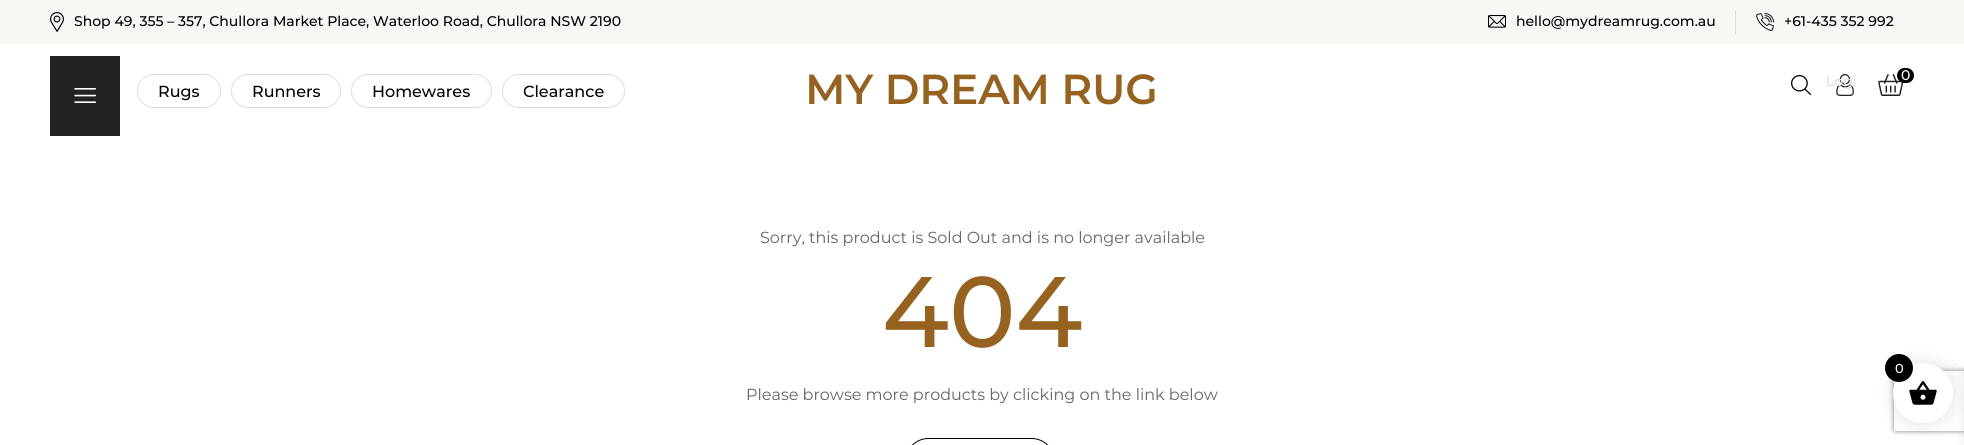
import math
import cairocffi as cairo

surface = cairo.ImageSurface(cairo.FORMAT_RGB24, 1964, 445)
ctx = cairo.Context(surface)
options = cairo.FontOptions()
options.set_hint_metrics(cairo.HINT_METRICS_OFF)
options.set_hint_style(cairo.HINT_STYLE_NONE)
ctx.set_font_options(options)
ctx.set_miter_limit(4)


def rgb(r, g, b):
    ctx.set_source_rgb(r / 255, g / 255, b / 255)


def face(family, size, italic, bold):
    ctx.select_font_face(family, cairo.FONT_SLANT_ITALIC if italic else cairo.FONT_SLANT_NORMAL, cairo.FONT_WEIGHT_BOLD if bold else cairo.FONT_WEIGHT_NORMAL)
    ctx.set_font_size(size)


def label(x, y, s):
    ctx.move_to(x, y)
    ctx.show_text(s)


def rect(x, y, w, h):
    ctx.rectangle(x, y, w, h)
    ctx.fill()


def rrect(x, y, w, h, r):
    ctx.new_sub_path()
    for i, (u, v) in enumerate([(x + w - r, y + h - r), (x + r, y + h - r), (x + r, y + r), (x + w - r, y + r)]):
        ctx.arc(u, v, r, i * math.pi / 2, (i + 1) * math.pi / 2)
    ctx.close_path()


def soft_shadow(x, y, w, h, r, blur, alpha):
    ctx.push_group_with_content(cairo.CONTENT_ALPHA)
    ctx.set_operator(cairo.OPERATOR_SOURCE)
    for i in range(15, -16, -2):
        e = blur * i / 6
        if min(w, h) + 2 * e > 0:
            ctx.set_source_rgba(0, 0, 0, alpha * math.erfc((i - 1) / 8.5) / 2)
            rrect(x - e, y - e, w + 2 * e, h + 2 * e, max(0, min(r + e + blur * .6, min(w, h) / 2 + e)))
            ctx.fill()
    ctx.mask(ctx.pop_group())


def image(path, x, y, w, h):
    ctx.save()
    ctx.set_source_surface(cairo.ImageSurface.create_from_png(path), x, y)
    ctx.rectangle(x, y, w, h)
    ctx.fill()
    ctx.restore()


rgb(255, 255, 255)
ctx.paint()
rgb(249, 247, 243)
rect(0, 0, 1964, 44)
image('image0.png', 50, 12, 14, 20)
face('Montserrat Medium', 14, 0, 0)
rgb(0, 0, 0)
label(74, 26, 'Shop 49, 355 – 357, Chullora Market Place, Waterloo Road, Chullora NSW 2190')
rgb(221, 221, 221)
rect(1735, 10, 1, 24)
image('image1.png', 1488, 15, 18, 13)
rgb(0, 0, 0)
label(1516, 26, 'hello@mydreamrug.com.au')
image('image2.png', 1756, 13, 18, 18)
label(1784, 26, '+61-435 352 992')
rgb(34, 34, 34)
rect(50, 56, 70, 80)
image('image3.png', 74, 88, 22, 15)
rrect(137.5, 74.5, 83, 33, 16.5)
rgb(221, 221, 221)
ctx.set_line_width(1)
ctx.stroke()
face('Montserrat Medium', 16, 0, 0)
rgb(0, 0, 0)
label(158, 97, 'Rugs')
rrect(231.5, 74.5, 109, 33, 16.5)
rgb(221, 221, 221)
ctx.stroke()
rgb(0, 0, 0)
label(252, 97, 'Runners')
rrect(351.5, 74.5, 140, 33, 16.5)
rgb(221, 221, 221)
ctx.stroke()
rgb(0, 0, 0)
label(372, 97, 'Homewares')
rrect(502.5, 74.5, 122, 33, 16.5)
rgb(221, 221, 221)
ctx.stroke()
rgb(0, 0, 0)
label(523, 97, 'Clearance')
image('image4.png', 809, 74, 346, 31)
image('image5.png', 1791, 75, 20, 20)
image('image6.png', 1836, 74, 18, 22)
face('Montserrat Medium', 14, 0, 0)
rgb(222, 222, 222)
label(1826, 86, 'Logi')
image('image7.png', 1878, 74, 26, 22)
rgb(0, 0, 0)
rrect(1897, 68, 17, 15, 7.5)
ctx.fill()
rgb(255, 255, 255)
label(1901, 80, '0')
face('Montserrat', 16, 0, 0)
rgb(101, 101, 101)
label(760, 243, 'Sorry, this product is Sold Out and is no longer available')
face('Montserrat Medium', 100, 0, 0)
rgb(150, 98, 31)
label(882, 347, '404')
face('Montserrat', 16, 0, 0)
rgb(101, 101, 101)
label(746, 400, 'Please browse more products by clicking on the link below')
rrect(905.5, 438.5, 149, 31, 23)
rgb(0, 0, 0)
ctx.stroke()
ctx.save()
ctx.set_fill_rule(cairo.FILL_RULE_EVEN_ODD)
ctx.new_path()
ctx.move_to(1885, 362)
ctx.line_to(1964, 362)
ctx.line_to(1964, 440)
ctx.line_to(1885, 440)
ctx.close_path()
ctx.move_to(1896, 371)
ctx.line_to(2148, 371)
ctx.curve_to(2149, 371, 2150, 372, 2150, 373)
ctx.line_to(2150, 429)
ctx.curve_to(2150, 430, 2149, 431, 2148, 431)
ctx.line_to(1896, 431)
ctx.curve_to(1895, 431, 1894, 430, 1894, 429)
ctx.line_to(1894, 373)
ctx.curve_to(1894, 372, 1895, 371, 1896, 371)
ctx.close_path()
ctx.clip()
rgb(128, 128, 128)
soft_shadow(1894, 371, 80, 60, 2, 2.5, 1)
ctx.restore()
rgb(0, 0, 0)
soft_shadow(1891, 361, 64, 64, 32, 7.5, 0.1)
soft_shadow(1964, 369, 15, 75, 0, 5, 0.1)
rgb(255, 255, 255)
ctx.arc(1923, 393, 30, 0, 2 * math.pi)
ctx.fill()
image('image8.png', 1909, 381, 28, 24)
rgb(0, 0, 0)
ctx.arc(1899, 368, 14, 0, 2 * math.pi)
ctx.fill()
face('Montserrat Medium', 13, 0, 0)
rgb(255, 255, 255)
label(1895, 373, '0')
rgb(245, 245, 245)
rect(1954, 363, 2, 2)
surface.write_to_png('render.png')
